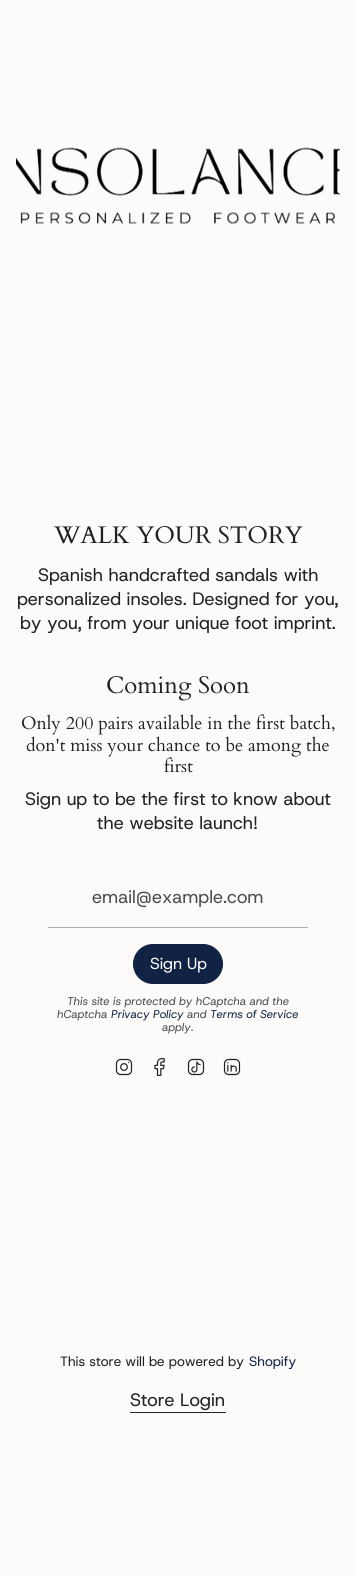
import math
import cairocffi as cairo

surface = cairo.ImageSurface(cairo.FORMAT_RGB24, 356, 1577)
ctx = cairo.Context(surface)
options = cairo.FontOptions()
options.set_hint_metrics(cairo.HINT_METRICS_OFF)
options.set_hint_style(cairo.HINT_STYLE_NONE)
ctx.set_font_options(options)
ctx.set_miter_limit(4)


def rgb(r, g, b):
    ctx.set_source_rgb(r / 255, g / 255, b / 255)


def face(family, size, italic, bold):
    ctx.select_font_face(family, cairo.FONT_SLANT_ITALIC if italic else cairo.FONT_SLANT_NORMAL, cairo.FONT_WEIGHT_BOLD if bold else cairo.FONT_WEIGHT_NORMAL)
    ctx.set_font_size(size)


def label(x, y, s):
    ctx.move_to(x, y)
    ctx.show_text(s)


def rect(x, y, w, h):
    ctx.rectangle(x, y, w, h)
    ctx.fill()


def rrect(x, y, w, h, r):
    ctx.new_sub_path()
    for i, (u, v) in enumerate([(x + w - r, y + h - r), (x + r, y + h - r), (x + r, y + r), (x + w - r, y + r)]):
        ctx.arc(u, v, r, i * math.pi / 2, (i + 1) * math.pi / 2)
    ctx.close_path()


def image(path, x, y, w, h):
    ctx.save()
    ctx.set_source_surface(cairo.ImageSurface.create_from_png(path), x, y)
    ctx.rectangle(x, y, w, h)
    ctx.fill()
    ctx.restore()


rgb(252, 251, 249)
ctx.paint()
image('image0.png', 16, 147, 324, 77)
face('Cardo', 24, 0, 0)
rgb(33, 33, 33)
label(54, 543, 'WALK YOUR STORY')
face('Host Grotesk', 18, 0, 0)
label(38, 581, 'Spanish handcrafted sandals with')
label(17, 605, 'personalized insoles. Designed for you,')
label(20, 629, 'by you, from your unique foot imprint.')
face('Cardo', 24, 0, 0)
label(106, 693, 'Coming Soon')
face('Cardo', 18, 0, 0)
label(21, 729, 'Only 200 pairs available in the first batch,')
label(26, 751, 'don\'t miss your chance to be among the')
label(164, 772, 'first')
face('Host Grotesk', 18, 0, 0)
label(25, 805, 'Sign up to be the first to know about')
label(97, 829, 'the website launch!')
rgb(175, 175, 173)
rect(48, 927, 260, 1)
rgb(77, 77, 76)
label(92, 903, 'email@example.com')
rgb(16, 35, 69)
rrect(133.5, 944.5, 89, 39, 19.5)
ctx.fill_preserve()
ctx.set_line_width(1)
ctx.stroke()
face('Host Grotesk', 16, 0, 0)
rgb(255, 255, 255)
label(150, 969, 'Sign Up')
face('Host Grotesk', 11.25, 1, 0)
rgb(77, 77, 76)
label(67, 1005, 'This site is protected by hCaptcha and the')
label(57, 1018, 'hCaptcha')
rgb(16, 35, 69)
label(111, 1018, 'Privacy Policy')
rgb(77, 77, 76)
label(187, 1018, 'and')
rgb(16, 35, 69)
label(210, 1018, 'Terms of Service')
rgb(77, 77, 76)
label(162, 1031, 'apply.')
image('image1.png', 115, 1058, 18, 18)
image('image2.png', 154, 1058, 11, 18)
image('image3.png', 187, 1058, 18, 18)
image('image4.png', 223, 1058, 18, 18)
face('Host Grotesk', 13.5, 0, 0)
rgb(33, 33, 33)
label(60, 1366, 'This store will be powered by')
rgb(16, 35, 69)
label(249, 1366, 'Shopify')
rgb(33, 33, 33)
rect(130, 1412, 96, 1)
face('Host Grotesk', 18, 0, 0)
label(130, 1406, 'Store Login')
surface.write_to_png('render.png')
